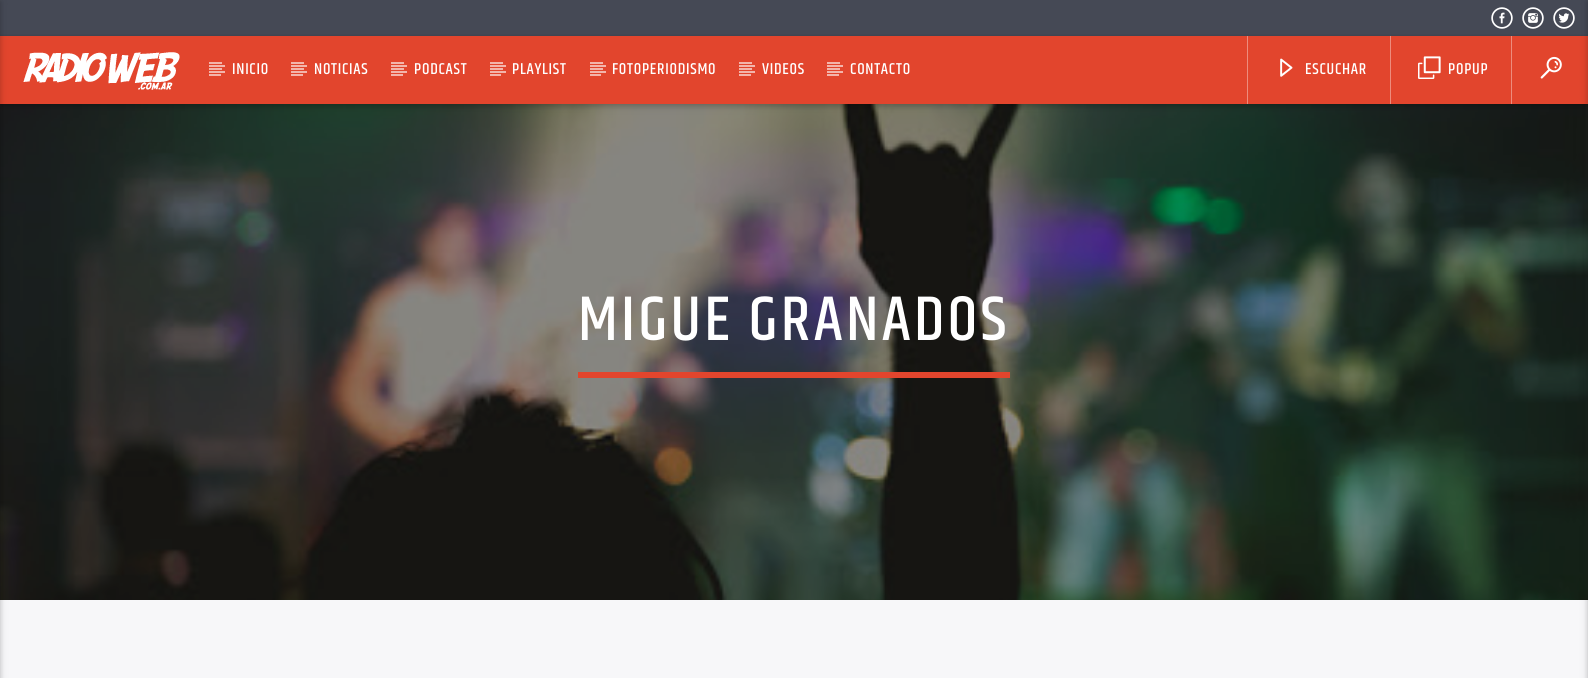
import math
import cairocffi as cairo

surface = cairo.ImageSurface(cairo.FORMAT_RGB24, 1588, 678)
ctx = cairo.Context(surface)
options = cairo.FontOptions()
options.set_hint_metrics(cairo.HINT_METRICS_OFF)
options.set_hint_style(cairo.HINT_STYLE_NONE)
ctx.set_font_options(options)
ctx.set_miter_limit(4)


def rgb(r, g, b):
    ctx.set_source_rgb(r / 255, g / 255, b / 255)


def face(family, size, italic, bold):
    ctx.select_font_face(family, cairo.FONT_SLANT_ITALIC if italic else cairo.FONT_SLANT_NORMAL, cairo.FONT_WEIGHT_BOLD if bold else cairo.FONT_WEIGHT_NORMAL)
    ctx.set_font_size(size)


def tracked(x, y, s, letter, word):
    ctx.move_to(x, y)
    for ch in s:
        ctx.show_text(ch)
        ctx.rel_move_to(letter + word * (ch == ' '), 0)


def rect(x, y, w, h):
    ctx.rectangle(x, y, w, h)
    ctx.fill()


def rrect(x, y, w, h, r):
    ctx.new_sub_path()
    for i, (u, v) in enumerate([(x + w - r, y + h - r), (x + r, y + h - r), (x + r, y + r), (x + w - r, y + r)]):
        ctx.arc(u, v, r, i * math.pi / 2, (i + 1) * math.pi / 2)
    ctx.close_path()


def soft_shadow(x, y, w, h, r, blur, alpha):
    ctx.push_group_with_content(cairo.CONTENT_ALPHA)
    ctx.set_operator(cairo.OPERATOR_SOURCE)
    for i in range(15, -16, -2):
        e = blur * i / 6
        if min(w, h) + 2 * e > 0:
            ctx.set_source_rgba(0, 0, 0, alpha * math.erfc((i - 1) / 8.5) / 2)
            rrect(x - e, y - e, w + 2 * e, h + 2 * e, max(0, min(r + e + blur * .6, min(w, h) / 2 + e)))
            ctx.fill()
    ctx.mask(ctx.pop_group())


def image(path, x, y, w, h):
    ctx.save()
    ctx.set_source_surface(cairo.ImageSurface.create_from_png(path), x, y)
    ctx.rectangle(x, y, w, h)
    ctx.fill()
    ctx.restore()


rgb(247, 247, 249)
ctx.paint()
rgb(69, 73, 85)
rect(0, 0, 1588, 36)
image('image0.png', 1491, 7, 22, 22)
image('image1.png', 1522, 7, 22, 22)
image('image2.png', 1553, 7, 22, 22)
rgb(0, 0, 0)
rect(0, 104, 1588, 496)
image('image7.png', 0, 104, 1588, 496)
rgb(0, 0, 0)
soft_shadow(0, 38, 1588, 68, 0, 5, 0.12)
soft_shadow(0, 38, 1588, 68, 0, 2.5, 0.16)
rgb(226, 69, 45)
rect(0, 36, 1588, 68)
rgb(0, 0, 0)
soft_shadow(-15, 2, 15, 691, 0, 5, 0.12)
soft_shadow(-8, 2, 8, 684, 0, 2.5, 0.16)
image('image3.png', 23, 52, 157, 38)
rgb(243, 181, 171)
rect(209, 74, 12, 2)
rect(209, 62, 13, 2)
rect(209, 68, 13, 2)
face('Khand Medium', 16, 0, 0)
rgb(255, 255, 255)
tracked(232, 74, 'INICIO', 0.75, 0)
rgb(243, 181, 171)
rect(209, 65, 16, 2)
rect(209, 71, 16, 2)
rect(291, 74, 12, 2)
rect(291, 62, 13, 2)
rect(291, 68, 13, 2)
rgb(255, 255, 255)
tracked(314, 74, 'NOTICIAS', 0.75, 0)
rgb(243, 181, 171)
rect(291, 65, 16, 2)
rect(291, 71, 16, 2)
rect(391, 74, 12, 2)
rect(391, 62, 13, 2)
rect(391, 68, 13, 2)
rgb(255, 255, 255)
tracked(414, 74, 'PODCAST', 0.75, 0)
rgb(243, 181, 171)
rect(391, 65, 16, 2)
rect(391, 71, 16, 2)
rect(490, 74, 11, 2)
rect(490, 62, 13, 2)
rect(490, 68, 13, 2)
rgb(255, 255, 255)
tracked(512, 74, 'PLAYLIST', 0.75, 0)
rgb(243, 181, 171)
rect(490, 65, 16, 2)
rect(490, 71, 16, 2)
rect(590, 74, 11, 2)
rect(590, 62, 13, 2)
rect(590, 68, 13, 2)
rgb(255, 255, 255)
tracked(612, 74, 'FOTOPERIODISMO', 0.75, 0)
rgb(243, 181, 171)
rect(590, 65, 16, 2)
rect(590, 71, 16, 2)
rect(739, 74, 12, 2)
rect(739, 62, 13, 2)
rect(739, 68, 13, 2)
rgb(255, 255, 255)
tracked(762, 74, 'VIDEOS', 0.75, 0)
rgb(243, 181, 171)
rect(739, 65, 16, 2)
rect(739, 71, 16, 2)
rect(827, 74, 12, 2)
rect(827, 62, 13, 2)
rect(827, 68, 13, 2)
rgb(255, 255, 255)
tracked(850, 74, 'CONTACTO', 0.75, 0)
rgb(243, 181, 171)
rect(827, 65, 16, 2)
rect(827, 71, 16, 2)
rgb(237, 140, 125)
rect(1247, 36, 1, 68)
image('image4.png', 1280, 58, 13, 19)
rgb(255, 255, 255)
tracked(1305, 74, 'ESCUCHAR', 0.75, 0)
rgb(237, 140, 125)
rect(1390, 36, 1, 68)
image('image5.png', 1418, 56, 23, 23)
rgb(255, 255, 255)
tracked(1448, 74, 'POPUP', 0.75, 0)
rgb(237, 140, 125)
rect(1511, 36, 1, 68)
image('image6.png', 1540, 56, 22, 23)
rgb(0, 0, 0)
soft_shadow(1588, 2, 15, 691, 0, 5, 0.12)
soft_shadow(1588, 2, 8, 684, 0, 2.5, 0.16)
rgb(226, 69, 45)
rect(578, 372, 432, 6)
face('Khand Medium', 64, 0, 0)
rgb(255, 255, 255)
tracked(578, 340, 'MIGUE GRANADOS', 3.25, 0)
surface.write_to_png('render.png')
